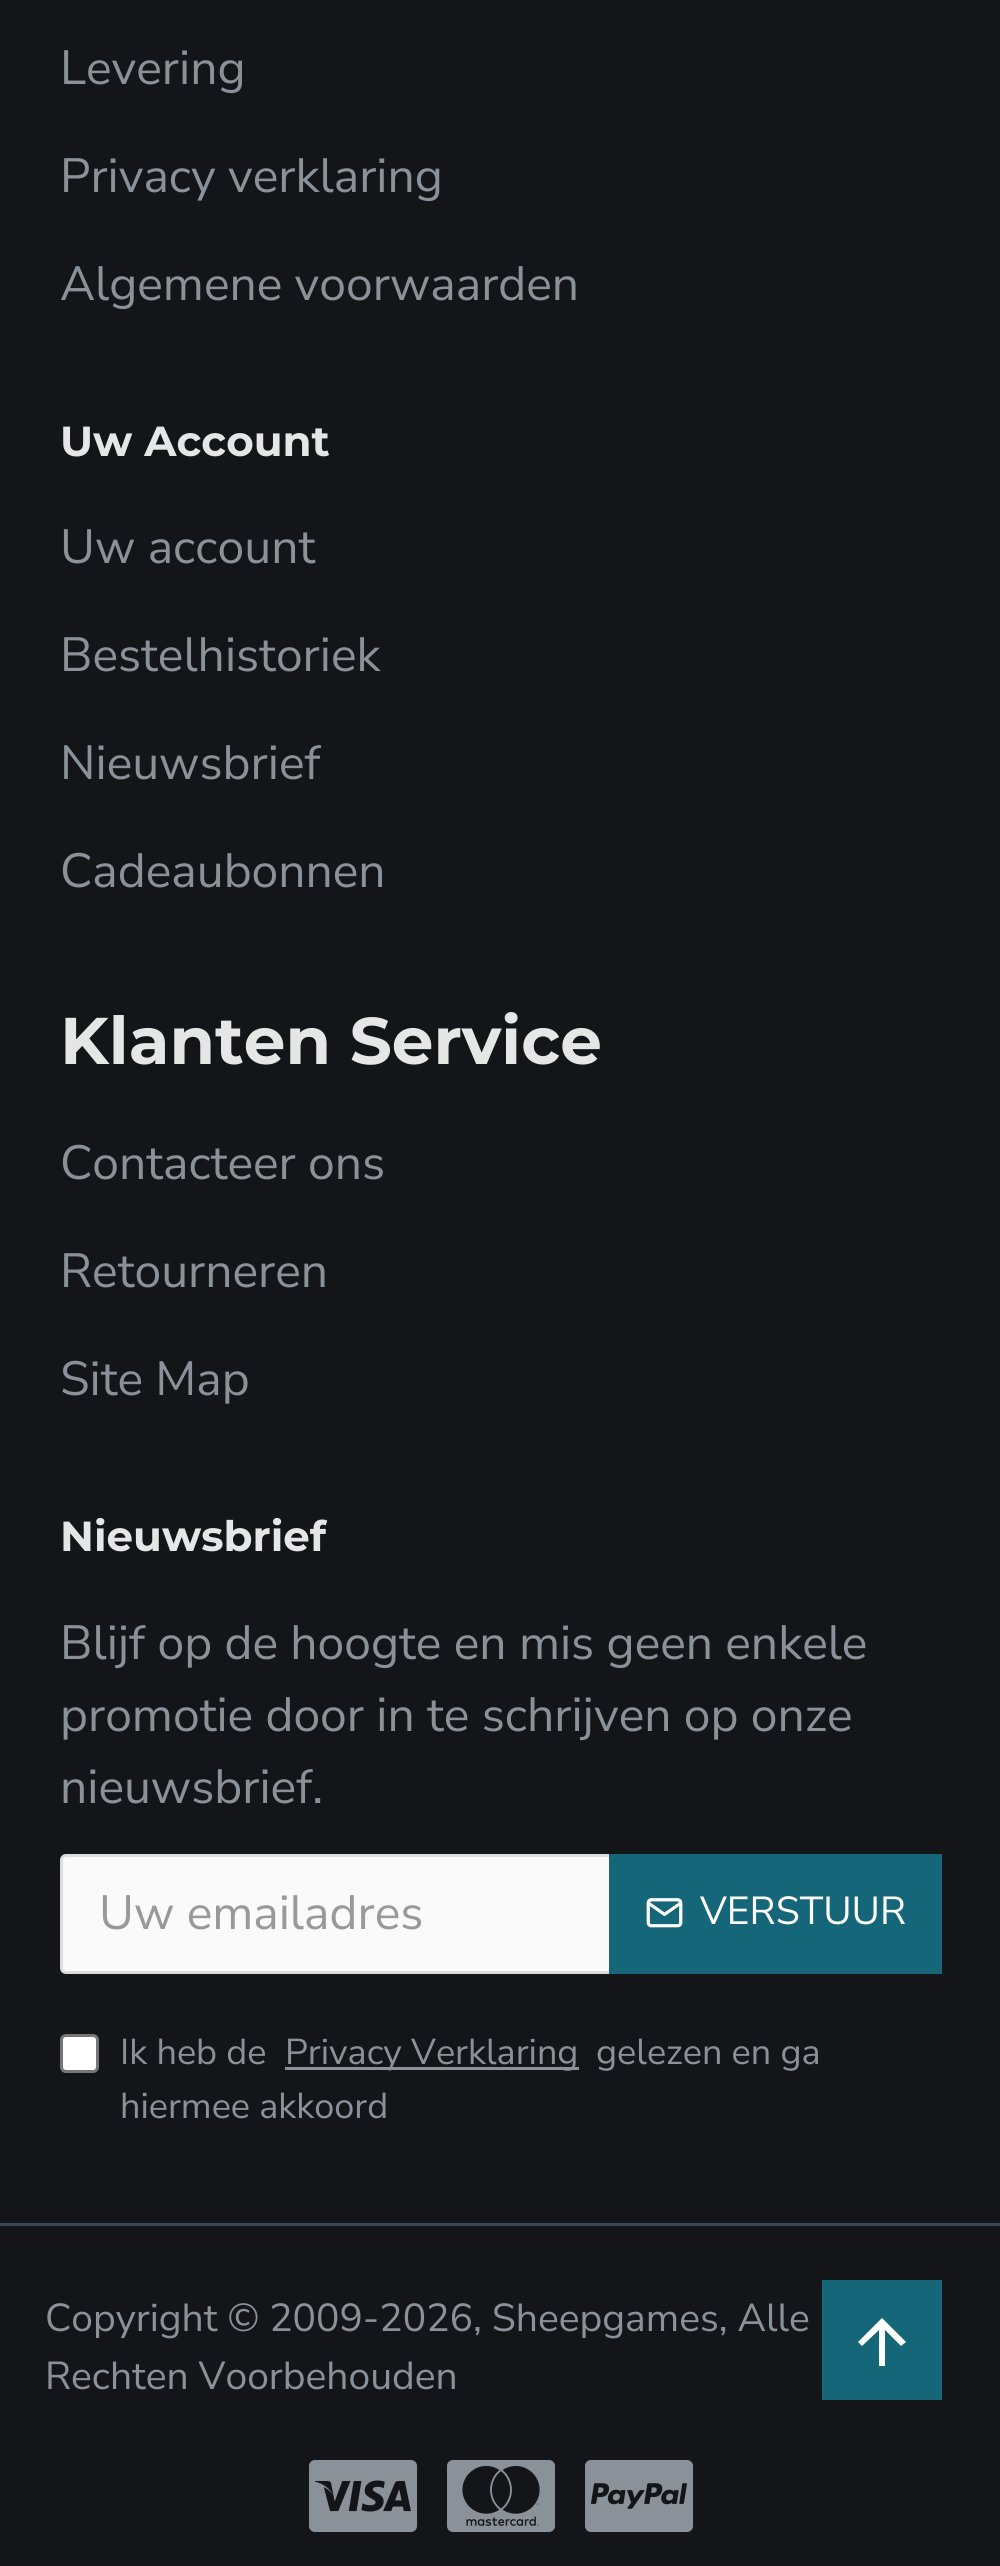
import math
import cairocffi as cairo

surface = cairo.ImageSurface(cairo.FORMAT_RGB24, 1000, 2566)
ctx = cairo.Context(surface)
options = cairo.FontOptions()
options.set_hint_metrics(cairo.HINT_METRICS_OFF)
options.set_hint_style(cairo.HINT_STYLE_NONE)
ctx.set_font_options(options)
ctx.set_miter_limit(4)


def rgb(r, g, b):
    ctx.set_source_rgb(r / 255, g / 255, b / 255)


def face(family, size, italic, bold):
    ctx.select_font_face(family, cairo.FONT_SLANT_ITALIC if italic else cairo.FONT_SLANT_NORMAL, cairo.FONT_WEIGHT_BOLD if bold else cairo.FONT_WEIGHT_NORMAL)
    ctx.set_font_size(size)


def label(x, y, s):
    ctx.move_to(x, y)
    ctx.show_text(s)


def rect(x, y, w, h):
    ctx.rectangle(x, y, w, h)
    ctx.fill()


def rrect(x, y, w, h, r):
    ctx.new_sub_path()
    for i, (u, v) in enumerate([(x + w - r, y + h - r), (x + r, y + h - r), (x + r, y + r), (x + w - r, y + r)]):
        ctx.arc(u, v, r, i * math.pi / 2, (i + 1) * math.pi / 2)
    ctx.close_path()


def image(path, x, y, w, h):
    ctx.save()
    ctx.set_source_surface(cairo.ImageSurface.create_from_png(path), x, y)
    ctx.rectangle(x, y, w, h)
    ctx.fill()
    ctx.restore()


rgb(20, 21, 24)
ctx.paint()
face('Nunito Sans', 48, 0, 0)
rgb(139, 145, 152)
label(60, 84, 'Levering')
label(60, 192, 'Privacy verklaring')
label(60, 300, 'Algemene voorwaarden')
face('Montserrat', 42, 0, 1)
rgb(230, 230, 230)
label(60, 456, 'Uw Account')
face('Nunito Sans', 48, 0, 0)
rgb(139, 145, 152)
label(60, 563, 'Uw account')
label(60, 671, 'Bestelhistoriek')
label(60, 779, 'Nieuwsbrief')
label(60, 887, 'Cadeaubonnen')
face('Montserrat', 66, 0, 1)
rgb(230, 230, 230)
label(60, 1064, 'Klanten Service')
face('Nunito Sans', 48, 0, 0)
rgb(139, 145, 152)
label(60, 1179, 'Contacteer ons')
label(60, 1287, 'Retourneren')
label(60, 1395, 'Site Map')
face('Montserrat', 42, 0, 1)
rgb(230, 230, 230)
label(60, 1551, 'Nieuwsbrief')
face('Nunito Sans', 48, 0, 0)
rgb(139, 145, 152)
label(60, 1659, 'Blijf op de hoogte en mis geen enkele')
label(60, 1731, 'promotie door in te schrijven op onze')
label(60, 1803, 'nieuwsbrief.')
rgb(250, 250, 250)
rrect(61.5, 1855.5, 879, 117, 4.5)
ctx.fill_preserve()
rgb(221, 221, 221)
ctx.set_line_width(3)
ctx.stroke()
rgb(153, 153, 153)
label(99, 1929, 'Uw emailadres')
rgb(20, 102, 120)
rect(609, 1854, 333, 120)
image('image0.png', 646, 1898, 37, 30)
face('Nunito Sans', 39, 0, 0)
rgb(255, 255, 255)
label(700, 1924, 'VERSTUUR')
rrect(61.5, 2035.5, 36, 36, 4.5)
ctx.fill_preserve()
rgb(118, 118, 118)
ctx.stroke()
face('Nunito Sans', 36, 0, 0)
rgb(139, 145, 152)
label(120, 2064, 'Ik heb de')
rect(285, 2067, 294, 3)
label(285, 2064, 'Privacy Verklaring')
label(596, 2064, 'gelezen en ga')
label(120, 2118, 'hiermee akkoord')
rgb(58, 71, 84)
rect(0, 2223, 1000, 3)
face('Nunito Sans', 39, 0, 0)
rgb(139, 145, 152)
label(45, 2331, 'Copyright © 2009-2026, Sheepgames, Alle')
label(45, 2389, 'Rechten Voorbehouden')
image('image1.png', 309, 2460, 109, 72)
image('image2.png', 447, 2460, 109, 72)
image('image3.png', 585, 2460, 109, 72)
rgb(20, 102, 120)
rect(822, 2280, 120, 120)
rgb(255, 255, 255)
ctx.new_path()
ctx.move_to(858, 2342)
ctx.line_to(882, 2318)
ctx.line_to(906, 2342)
ctx.line_to(901, 2346)
ctx.line_to(885, 2330)
ctx.line_to(885, 2366)
ctx.line_to(879, 2366)
ctx.line_to(879, 2330)
ctx.line_to(862, 2346)
ctx.close_path()
ctx.fill()
surface.write_to_png('render.png')
